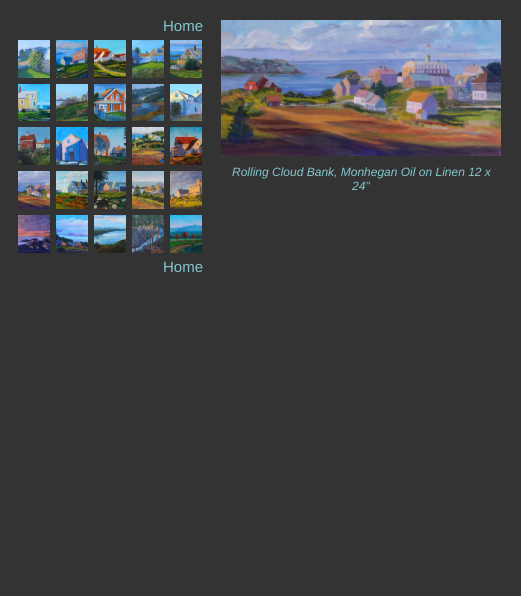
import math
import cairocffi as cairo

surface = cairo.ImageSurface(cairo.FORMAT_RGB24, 521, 596)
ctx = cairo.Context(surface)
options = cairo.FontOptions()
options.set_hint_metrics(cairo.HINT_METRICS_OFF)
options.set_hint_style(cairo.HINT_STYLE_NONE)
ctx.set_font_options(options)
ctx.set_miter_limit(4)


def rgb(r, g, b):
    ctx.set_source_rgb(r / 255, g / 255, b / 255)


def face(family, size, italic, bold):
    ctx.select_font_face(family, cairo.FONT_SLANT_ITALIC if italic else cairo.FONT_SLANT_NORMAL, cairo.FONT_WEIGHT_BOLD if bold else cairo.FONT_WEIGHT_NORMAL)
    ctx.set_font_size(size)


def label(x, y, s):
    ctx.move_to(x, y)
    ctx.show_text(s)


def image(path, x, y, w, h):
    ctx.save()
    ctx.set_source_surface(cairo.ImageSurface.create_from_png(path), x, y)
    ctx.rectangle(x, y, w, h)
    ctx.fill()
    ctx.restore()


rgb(51, 51, 51)
ctx.paint()
face('Liberation Sans', 15, 0, 0)
rgb(133, 198, 205)
label(163, 31, 'Home')
image('image0.png', 18, 40, 32, 38)
image('image1.png', 56, 40, 32, 38)
image('image2.png', 94, 40, 32, 38)
image('image3.png', 132, 40, 32, 38)
image('image4.png', 170, 40, 32, 38)
image('image5.png', 18, 84, 32, 37)
image('image6.png', 56, 84, 32, 37)
image('image7.png', 94, 84, 32, 37)
image('image8.png', 132, 84, 32, 37)
image('image9.png', 170, 84, 32, 37)
image('image10.png', 18, 127, 32, 38)
image('image11.png', 56, 127, 32, 38)
image('image12.png', 94, 127, 32, 38)
image('image13.png', 132, 127, 32, 38)
image('image14.png', 170, 127, 32, 38)
image('image15.png', 18, 171, 32, 38)
image('image16.png', 56, 171, 32, 38)
image('image17.png', 94, 171, 32, 38)
image('image18.png', 132, 171, 32, 38)
image('image19.png', 170, 171, 32, 38)
image('image20.png', 18, 215, 32, 38)
image('image21.png', 56, 215, 32, 38)
image('image22.png', 94, 215, 32, 38)
image('image23.png', 132, 215, 32, 38)
image('image24.png', 170, 215, 32, 38)
label(163, 272, 'Home')
image('image25.png', 221, 20, 280, 136)
face('Liberation Sans', 12, 1, 0)
label(232, 176, 'Rolling Cloud Bank, Monhegan Oil on Linen 12 x')
label(352, 190, '24"')
surface.write_to_png('render.png')
